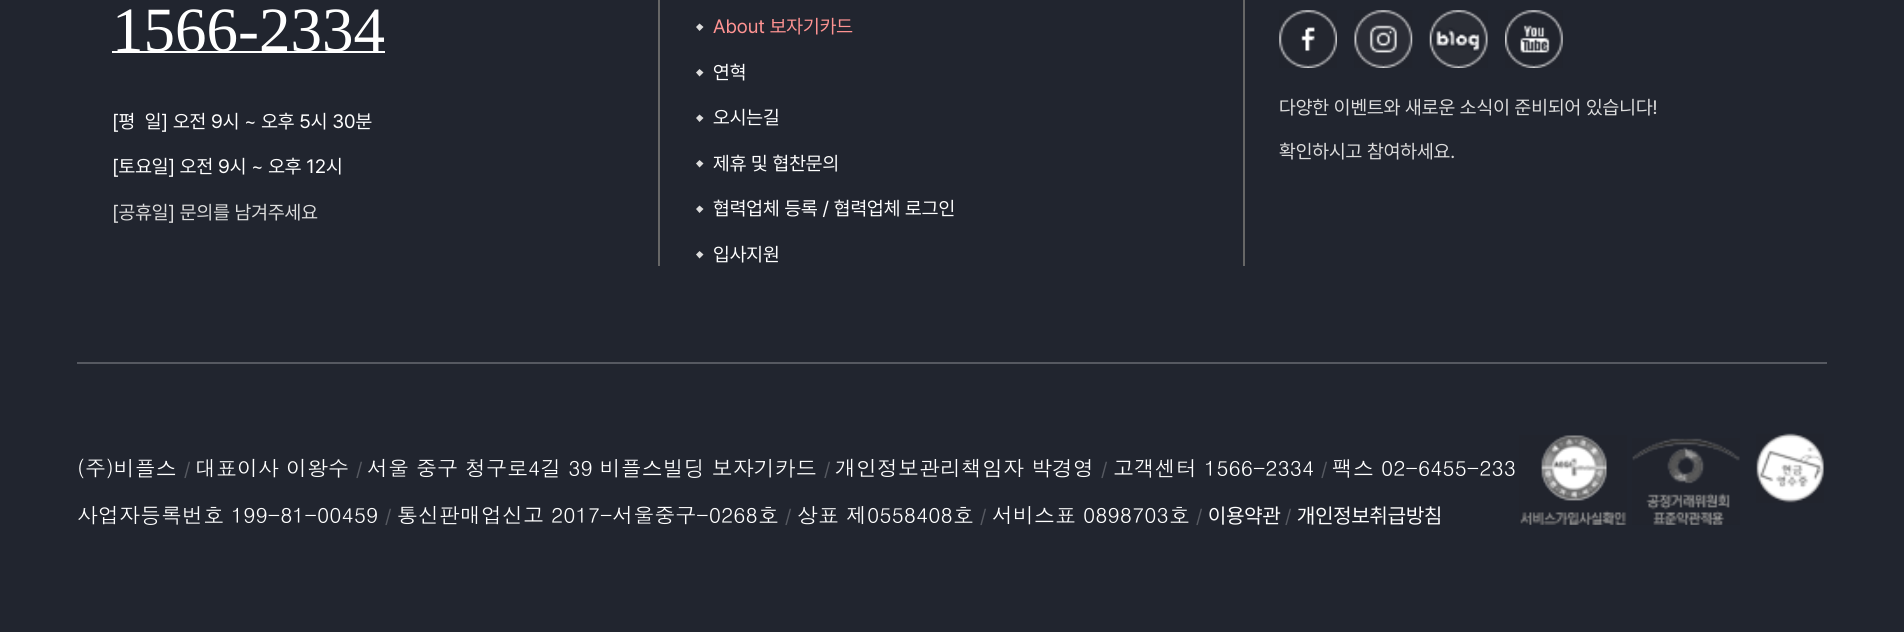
import math
import cairocffi as cairo

surface = cairo.ImageSurface(cairo.FORMAT_RGB24, 1904, 632)
ctx = cairo.Context(surface)
options = cairo.FontOptions()
options.set_hint_metrics(cairo.HINT_METRICS_OFF)
options.set_hint_style(cairo.HINT_STYLE_NONE)
ctx.set_font_options(options)
ctx.set_miter_limit(4)


def rgb(r, g, b):
    ctx.set_source_rgb(r / 255, g / 255, b / 255)


def face(family, size, italic, bold):
    ctx.select_font_face(family, cairo.FONT_SLANT_ITALIC if italic else cairo.FONT_SLANT_NORMAL, cairo.FONT_WEIGHT_BOLD if bold else cairo.FONT_WEIGHT_NORMAL)
    ctx.set_font_size(size)


def label(x, y, s):
    ctx.move_to(x, y)
    ctx.show_text(s)


def rect(x, y, w, h):
    ctx.rectangle(x, y, w, h)
    ctx.fill()


def image(path, x, y, w, h):
    ctx.save()
    ctx.set_source_surface(cairo.ImageSurface.create_from_png(path), x, y)
    ctx.rectangle(x, y, w, h)
    ctx.fill()
    ctx.restore()


rgb(33, 37, 47)
ctx.paint()
rgb(102, 102, 102)
rect(658, 0, 2, 266)
face('Liberation Serif', 63, 0, 0)
rgb(255, 255, 255)
label(112, 51, '1566-2334')
rect(112, 51, 273, 2)
face('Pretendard', 19.25, 0, 0)
label(112, 128, '[평  일] 오전 9시 ~ 오후 5시 30분')
label(112, 173, '[토요일] 오전 9시 ~ 오후 12시')
rgb(221, 221, 221)
label(112, 219, '[공휴일] 문의를 남겨주세요')
rgb(102, 102, 102)
rect(1243, 0, 2, 266)
rgb(221, 221, 221)
ctx.new_path()
ctx.move_to(699.5, 23.5)
ctx.line_to(703.5, 27)
ctx.line_to(699.5, 31)
ctx.line_to(696, 27)
ctx.close_path()
ctx.fill()
rgb(255, 147, 146)
label(713, 33, 'About 보자기카드')
rgb(221, 221, 221)
ctx.new_path()
ctx.move_to(699.5, 69)
ctx.line_to(703.5, 72.5)
ctx.line_to(699.5, 76.5)
ctx.line_to(696, 72.5)
ctx.close_path()
ctx.fill()
rgb(255, 255, 255)
label(713, 79, '연혁')
rgb(221, 221, 221)
ctx.new_path()
ctx.move_to(699.5, 114.5)
ctx.line_to(703.5, 118)
ctx.line_to(699.5, 122)
ctx.line_to(696, 118)
ctx.close_path()
ctx.fill()
rgb(255, 255, 255)
label(713, 124, '오시는길')
rgb(221, 221, 221)
ctx.new_path()
ctx.move_to(699.5, 160)
ctx.line_to(703.5, 163.5)
ctx.line_to(699.5, 167.5)
ctx.line_to(696, 163.5)
ctx.close_path()
ctx.fill()
rgb(255, 255, 255)
label(713, 170, '제휴 및 협찬문의')
rgb(221, 221, 221)
ctx.new_path()
ctx.move_to(699.5, 205.5)
ctx.line_to(703.5, 209)
ctx.line_to(699.5, 213)
ctx.line_to(696, 209)
ctx.close_path()
ctx.fill()
rgb(255, 255, 255)
label(713, 215, '협력업체 등록 / 협력업체 로그인')
rgb(221, 221, 221)
ctx.new_path()
ctx.move_to(699.5, 251)
ctx.line_to(703.5, 254.5)
ctx.line_to(699.5, 258.5)
ctx.line_to(696, 254.5)
ctx.close_path()
ctx.fill()
rgb(255, 255, 255)
label(713, 261, '입사지원')
image('image0.png', 1279, 10, 58, 58)
image('image1.png', 1354, 10, 59, 58)
image('image2.png', 1429, 10, 59, 58)
image('image3.png', 1505, 10, 58, 58)
rgb(221, 221, 221)
label(1279, 114, '다양한 이벤트와 새로운 소식이 준비되어 있습니다!')
label(1279, 158, '확인하시고 참여하세요.')
rgb(86, 89, 97)
rect(77, 362, 1750, 2)
face('Dotum', 21, 0, 0)
rgb(255, 255, 255)
label(77, 476, '(주)비플스')
face('Pretendard', 19.25, 0, 0)
rgb(86, 89, 97)
label(184, 476, '/')
face('Dotum', 21, 0, 0)
rgb(255, 255, 255)
label(195, 476, '대표이사 이왕수')
face('Pretendard', 19.25, 0, 0)
rgb(86, 89, 97)
label(356, 476, '/')
face('Dotum', 21, 0, 0)
rgb(255, 255, 255)
label(367, 476, '서울 중구 청구로4길 39 비플스빌딩 보자기카드')
face('Pretendard', 19.25, 0, 0)
rgb(86, 89, 97)
label(824, 476, '/')
face('Dotum', 21, 0, 0)
rgb(255, 255, 255)
label(835, 476, '개인정보관리책임자 박경영')
face('Pretendard', 19.25, 0, 0)
rgb(86, 89, 97)
label(1101, 476, '/')
face('Dotum', 21, 0, 0)
rgb(255, 255, 255)
label(1113, 476, '고객센터 1566-2334')
face('Pretendard', 19.25, 0, 0)
rgb(86, 89, 97)
label(1321, 476, '/')
face('Dotum', 21, 0, 0)
rgb(255, 255, 255)
label(1332, 476, '팩스 02-6455-233')
image('image4.png', 1519, 435, 108, 90)
image('image5.png', 1632, 438, 108, 87)
image('image6.png', 1756, 433, 68, 70)
label(77, 523, '사업자등록번호 199-81-00459')
face('Pretendard', 19.25, 0, 0)
rgb(86, 89, 97)
label(385, 523, '/')
face('Dotum', 21, 0, 0)
rgb(255, 255, 255)
label(397, 523, '통신판매업신고 2017-서울중구-0268호')
face('Pretendard', 19.25, 0, 0)
rgb(86, 89, 97)
label(785, 523, '/')
face('Dotum', 21, 0, 0)
rgb(255, 255, 255)
label(797, 523, '상표 제0558408호')
face('Pretendard', 19.25, 0, 0)
rgb(86, 89, 97)
label(980, 523, '/')
face('Dotum', 21, 0, 0)
rgb(255, 255, 255)
label(992, 523, '서비스표 0898703호')
face('Pretendard', 19.25, 0, 0)
rgb(86, 89, 97)
label(1196, 523, '/')
face('Pretendard', 21, 0, 0)
rgb(255, 255, 255)
label(1208, 523, '이용약관')
face('Pretendard', 19.25, 0, 0)
rgb(86, 89, 97)
label(1285, 523, '/')
face('Pretendard', 21, 0, 0)
rgb(255, 255, 255)
label(1297, 523, '개인정보취급방침')
surface.write_to_png('render.png')
